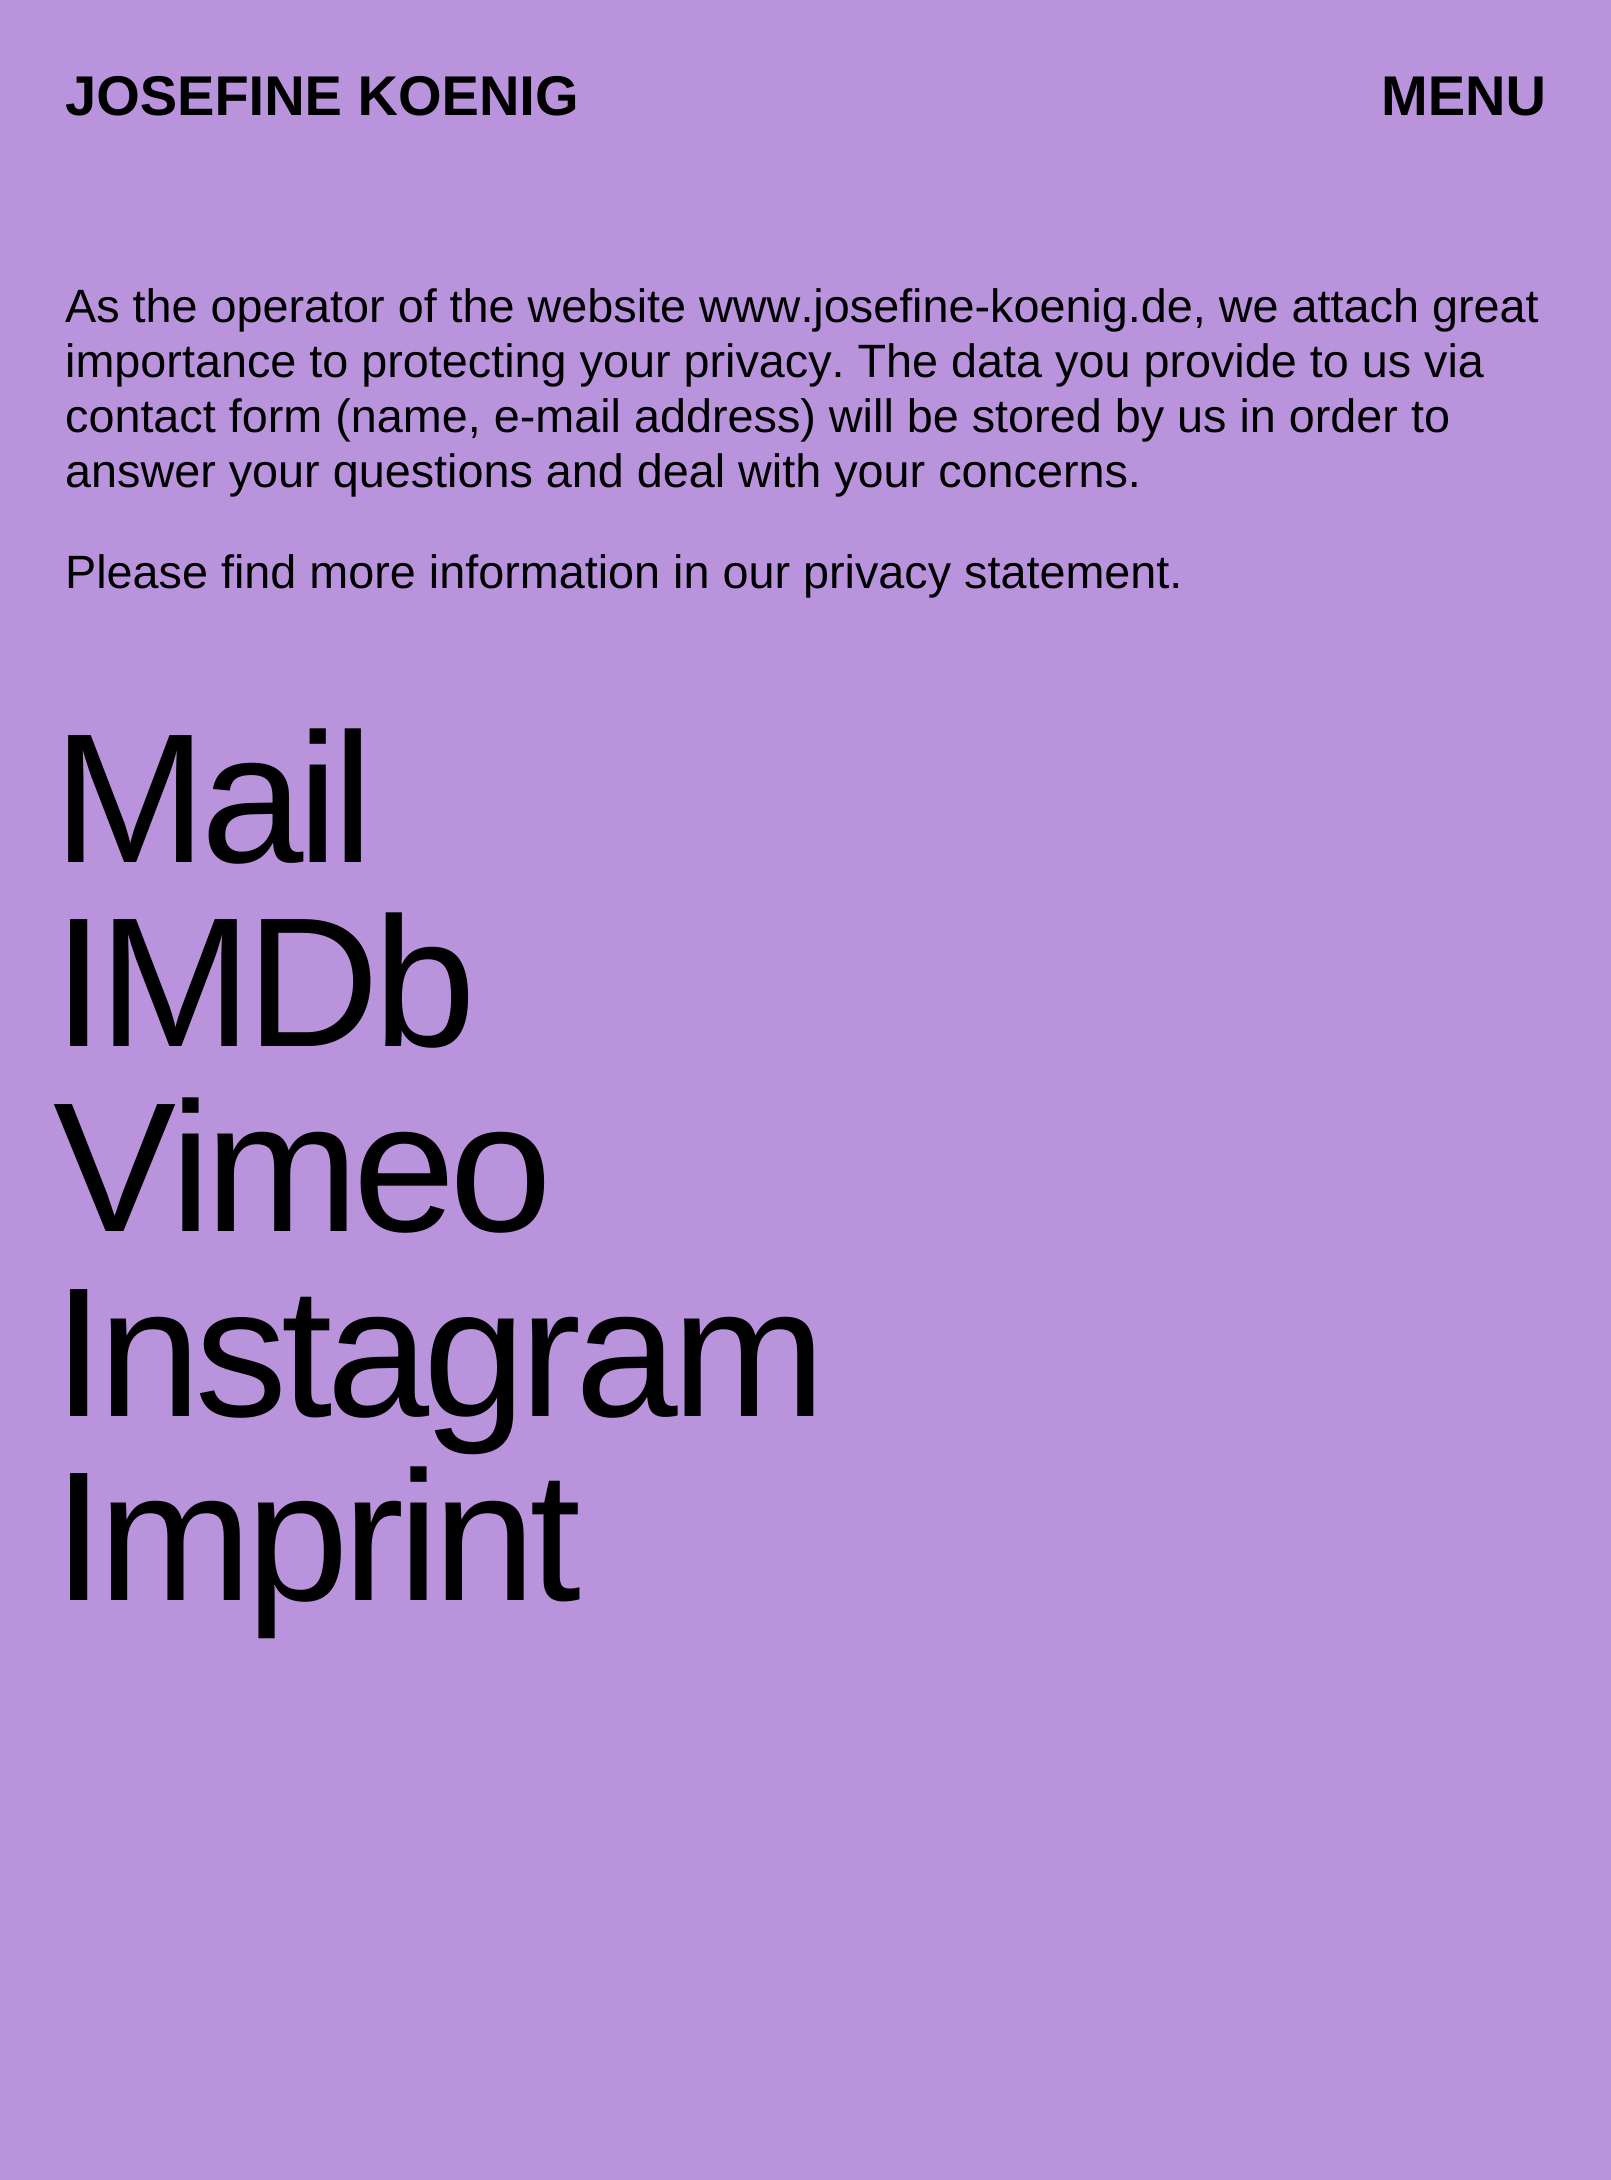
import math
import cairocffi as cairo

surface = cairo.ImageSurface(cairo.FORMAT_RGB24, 1611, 2180)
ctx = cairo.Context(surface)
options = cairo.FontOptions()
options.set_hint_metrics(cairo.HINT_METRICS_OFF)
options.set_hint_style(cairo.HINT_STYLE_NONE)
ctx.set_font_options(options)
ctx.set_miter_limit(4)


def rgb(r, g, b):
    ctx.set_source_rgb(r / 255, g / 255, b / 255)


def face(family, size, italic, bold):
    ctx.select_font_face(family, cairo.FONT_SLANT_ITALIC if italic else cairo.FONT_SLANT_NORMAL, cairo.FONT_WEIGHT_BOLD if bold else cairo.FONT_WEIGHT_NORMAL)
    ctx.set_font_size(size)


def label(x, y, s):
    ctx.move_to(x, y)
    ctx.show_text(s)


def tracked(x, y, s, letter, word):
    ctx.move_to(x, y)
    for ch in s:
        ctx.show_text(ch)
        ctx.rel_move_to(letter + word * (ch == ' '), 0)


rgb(185, 148, 221)
ctx.paint()
face('Liberation Sans', 56, 0, 1)
rgb(0, 0, 0)
label(65, 115, 'JOSEFINE KOENIG')
label(1381, 115, 'MENU')
face('Liberation Sans', 46.75, 0, 0)
label(65, 322, 'As the operator of the website www.josefine-koenig.de, we attach great')
label(65, 377, 'importance to protecting your privacy. The data you provide to us via')
label(65, 432, 'contact form (name, e-mail address) will be stored by us in order to')
label(65, 487, 'answer your questions and deal with your concerns.')
label(65, 588, 'Please find more information in our privacy statement.')
face('Liberation Sans', 184.5, 0, 0)
tracked(53, 862, 'Mail', -6, 0)
tracked(53, 1046, 'IMDb', -6, 0)
tracked(53, 1231, 'Vimeo', -6, 0)
tracked(53, 1416, 'Instagram', -6, 0)
tracked(53, 1600, 'Imprint', -6, 0)
surface.write_to_png('render.png')
